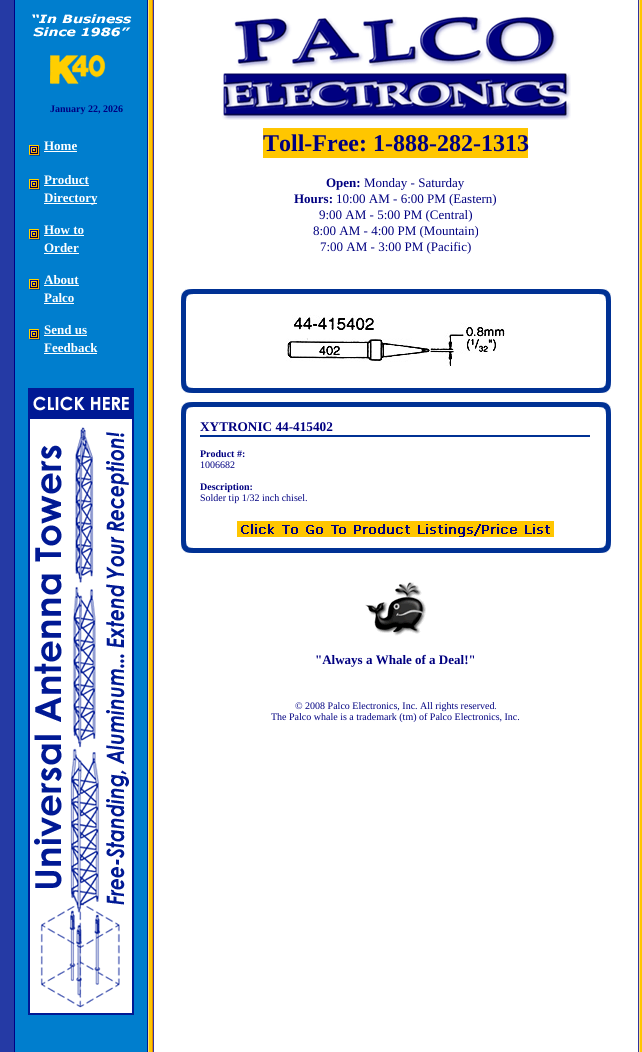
import math
import cairocffi as cairo

surface = cairo.ImageSurface(cairo.FORMAT_RGB24, 642, 1052)
ctx = cairo.Context(surface)
options = cairo.FontOptions()
options.set_hint_metrics(cairo.HINT_METRICS_OFF)
options.set_hint_style(cairo.HINT_STYLE_NONE)
ctx.set_font_options(options)
ctx.set_miter_limit(4)


def rgb(r, g, b):
    ctx.set_source_rgb(r / 255, g / 255, b / 255)


def face(family, size, italic, bold):
    ctx.select_font_face(family, cairo.FONT_SLANT_ITALIC if italic else cairo.FONT_SLANT_NORMAL, cairo.FONT_WEIGHT_BOLD if bold else cairo.FONT_WEIGHT_NORMAL)
    ctx.set_font_size(size)


def label(x, y, s):
    ctx.move_to(x, y)
    ctx.show_text(s)


def rect(x, y, w, h):
    ctx.rectangle(x, y, w, h)
    ctx.fill()


def image(path, x, y, w, h):
    ctx.save()
    ctx.set_source_surface(cairo.ImageSurface.create_from_png(path), x, y)
    ctx.rectangle(x, y, w, h)
    ctx.fill()
    ctx.restore()


rgb(255, 255, 255)
ctx.paint()
image('image0.png', 0, 0, 642, 1052)
image('image1.png', 32, 14, 100, 23)
image('image2.png', 50, 55, 56, 30)
face('Liberation Serif', 10, 0, 1)
rgb(0, 0, 128)
label(50, 112, 'January 22, 2026')
image('image3.png', 29, 145, 11, 11)
face('Liberation Serif', 13, 0, 1)
rgb(255, 255, 255)
label(44, 150, 'Home')
rect(44, 151, 33, 1)
image('image3.png', 29, 179, 11, 11)
label(44, 184, 'Product')
rect(44, 185, 45, 1)
rect(44, 203, 53, 1)
label(44, 202, 'Directory')
image('image3.png', 29, 229, 11, 11)
label(44, 234, 'How to')
rect(44, 235, 40, 1)
label(44, 252, 'Order')
rect(44, 253, 35, 1)
image('image3.png', 29, 279, 11, 11)
label(44, 284, 'About')
rect(44, 285, 35, 1)
label(44, 302, 'Palco')
rect(44, 303, 30, 1)
image('image3.png', 29, 329, 11, 11)
label(44, 334, 'Send us')
rect(44, 335, 43, 1)
label(44, 352, 'Feedback')
rect(44, 353, 53, 1)
image('image4.png', 28, 388, 106, 627)
image('image5.png', 222, 16, 349, 104)
rgb(255, 198, 0)
rect(263, 128, 265, 30)
face('Liberation Serif', 24, 0, 1)
rgb(0, 0, 128)
label(263, 151, 'Toll-Free: 1-888-282-1313')
face('Liberation Serif', 13, 0, 1)
label(326, 187, 'Open:')
face('Liberation Serif', 13, 0, 0)
label(364, 187, 'Monday - Saturday')
face('Liberation Serif', 13, 0, 1)
label(294, 203, 'Hours:')
face('Liberation Serif', 13, 0, 0)
label(336, 203, '10:00 AM - 6:00 PM (Eastern)')
label(319, 219, '9:00 AM - 5:00 PM (Central)')
label(313, 235, '8:00 AM - 4:00 PM (Mountain)')
label(320, 251, '7:00 AM - 3:00 PM (Pacific)')
image('image6.png', 181, 289, 12, 12)
rgb(0, 49, 148)
rect(193, 289, 406, 5)
image('image7.png', 599, 289, 12, 12)
rect(181, 301, 5, 80)
image('image8.png', 286, 315, 219, 52)
rect(606, 301, 5, 80)
image('image9.png', 181, 381, 12, 12)
rect(193, 388, 406, 5)
image('image10.png', 599, 381, 12, 12)
image('image6.png', 181, 402, 12, 12)
rect(193, 402, 406, 5)
image('image7.png', 599, 402, 12, 12)
rect(181, 414, 5, 127)
face('Liberation Serif', 13.25, 0, 1)
rgb(0, 0, 128)
label(200, 431, 'XYTRONIC 44-415402')
rgb(0, 49, 148)
rect(200, 435, 390, 2)
face('Liberation Serif', 10, 0, 1)
rgb(0, 0, 128)
label(200, 457, 'Product #:')
face('Liberation Serif', 10, 0, 0)
label(200, 468, '1006682')
face('Liberation Serif', 10, 0, 1)
label(200, 490, 'Description:')
face('Liberation Serif', 10, 0, 0)
label(200, 501, 'Solder tip 1/32 inch chisel.')
image('image11.png', 237, 521, 317, 16)
rgb(0, 49, 148)
rect(606, 414, 5, 127)
image('image9.png', 181, 541, 12, 12)
rect(193, 548, 406, 5)
image('image10.png', 599, 541, 12, 12)
image('image12.png', 365, 582, 61, 54)
face('Liberation Serif', 13, 0, 1)
rgb(0, 0, 128)
label(315, 664, '"Always a Whale of a Deal!"')
face('Liberation Serif', 10, 0, 0)
label(295, 709, '© 2008 Palco Electronics, Inc. All rights reserved.')
label(271, 720, 'The Palco whale is a trademark (tm) of Palco Electronics, Inc.')
surface.write_to_png('render.png')
